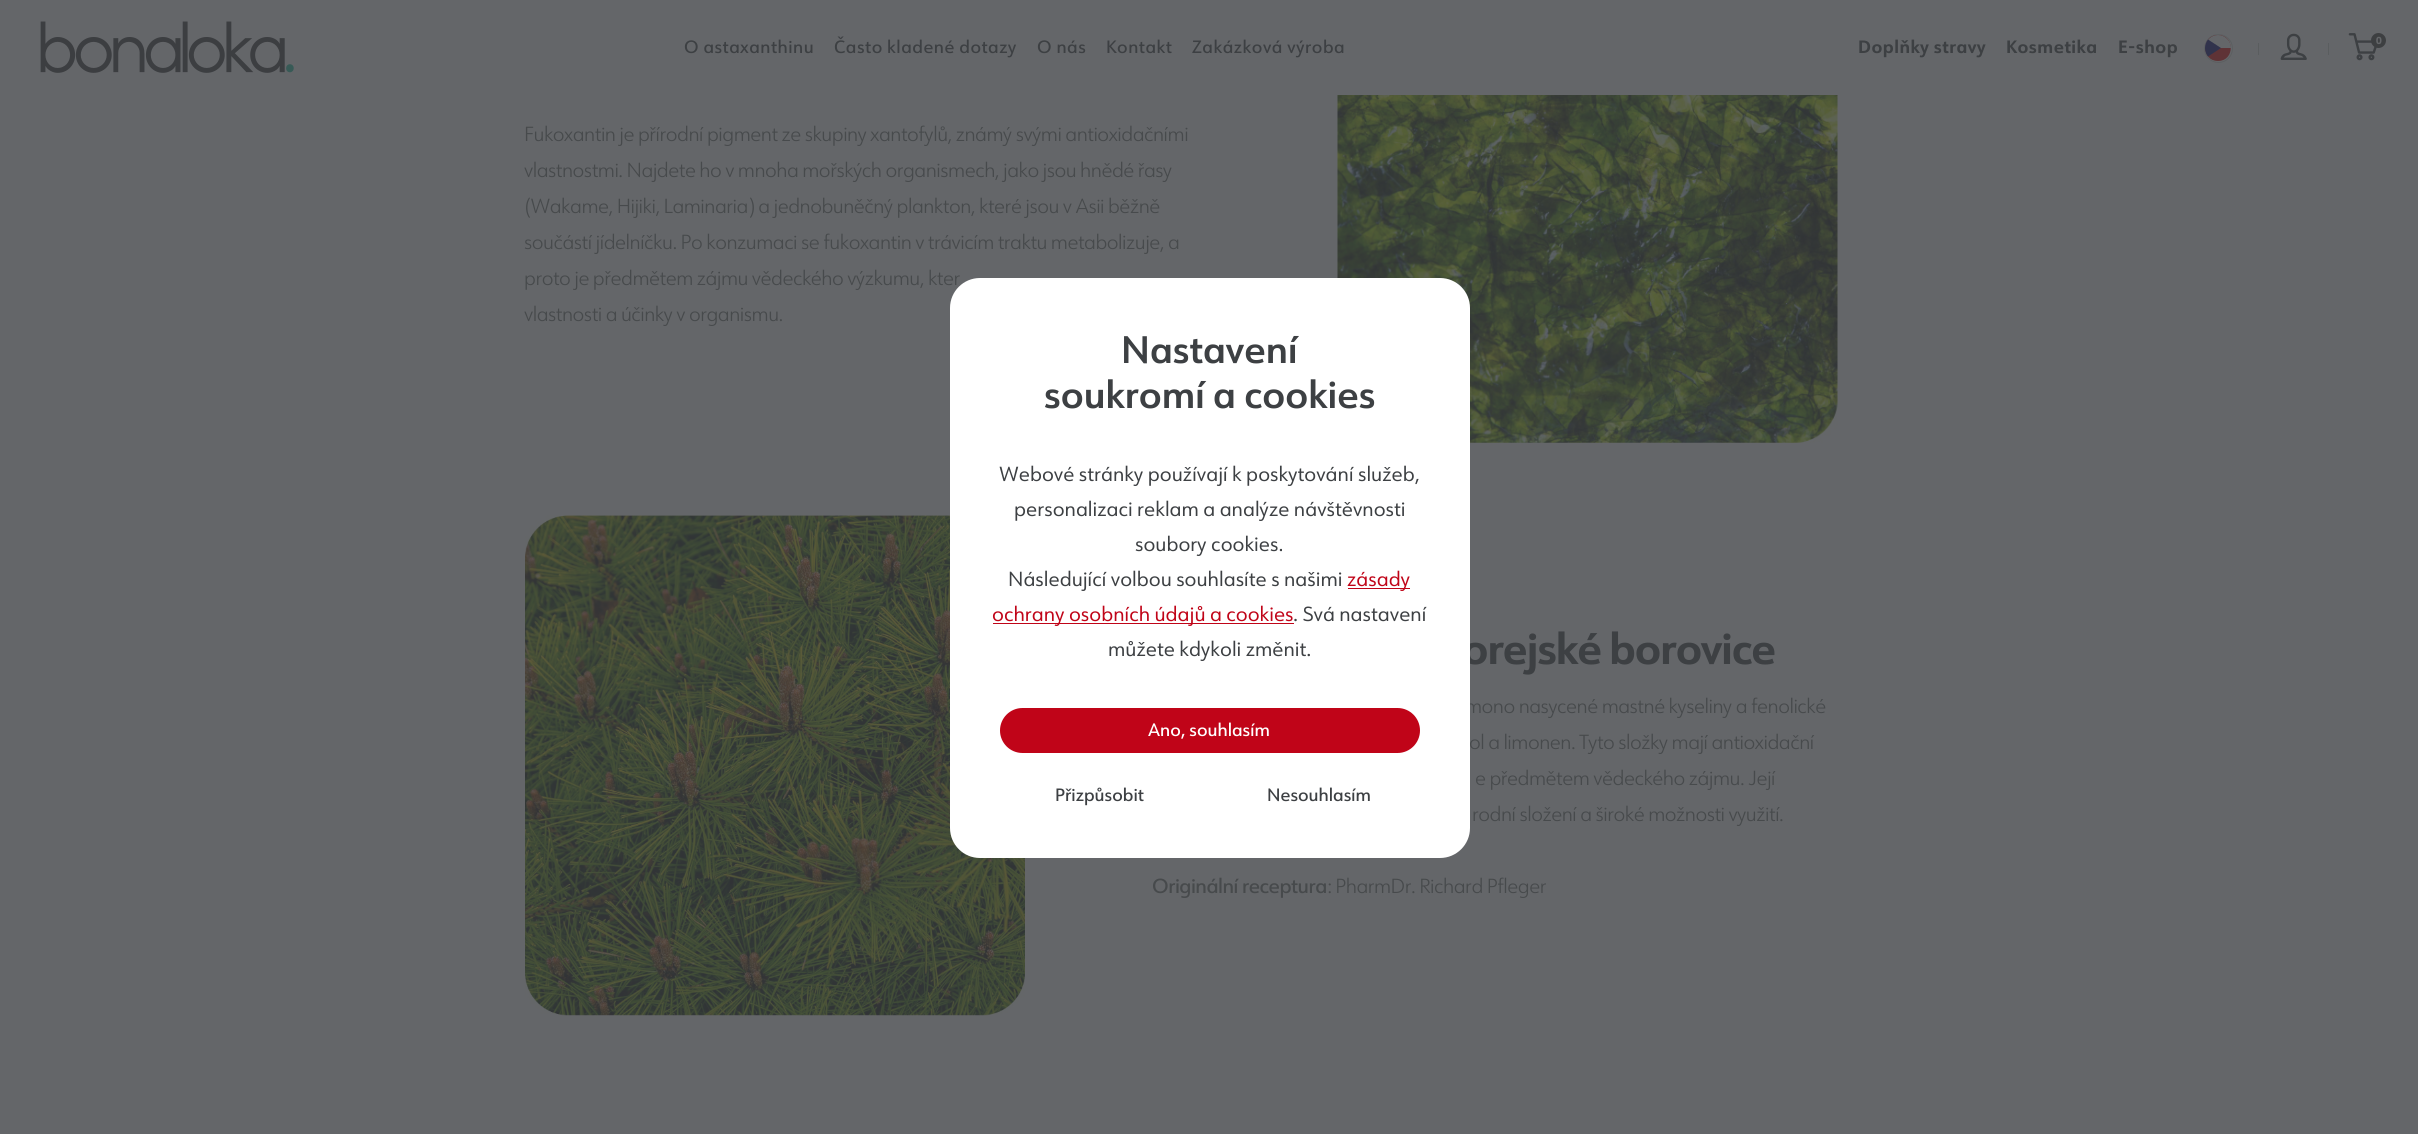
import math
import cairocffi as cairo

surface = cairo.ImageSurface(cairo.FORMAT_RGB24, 2418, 1134)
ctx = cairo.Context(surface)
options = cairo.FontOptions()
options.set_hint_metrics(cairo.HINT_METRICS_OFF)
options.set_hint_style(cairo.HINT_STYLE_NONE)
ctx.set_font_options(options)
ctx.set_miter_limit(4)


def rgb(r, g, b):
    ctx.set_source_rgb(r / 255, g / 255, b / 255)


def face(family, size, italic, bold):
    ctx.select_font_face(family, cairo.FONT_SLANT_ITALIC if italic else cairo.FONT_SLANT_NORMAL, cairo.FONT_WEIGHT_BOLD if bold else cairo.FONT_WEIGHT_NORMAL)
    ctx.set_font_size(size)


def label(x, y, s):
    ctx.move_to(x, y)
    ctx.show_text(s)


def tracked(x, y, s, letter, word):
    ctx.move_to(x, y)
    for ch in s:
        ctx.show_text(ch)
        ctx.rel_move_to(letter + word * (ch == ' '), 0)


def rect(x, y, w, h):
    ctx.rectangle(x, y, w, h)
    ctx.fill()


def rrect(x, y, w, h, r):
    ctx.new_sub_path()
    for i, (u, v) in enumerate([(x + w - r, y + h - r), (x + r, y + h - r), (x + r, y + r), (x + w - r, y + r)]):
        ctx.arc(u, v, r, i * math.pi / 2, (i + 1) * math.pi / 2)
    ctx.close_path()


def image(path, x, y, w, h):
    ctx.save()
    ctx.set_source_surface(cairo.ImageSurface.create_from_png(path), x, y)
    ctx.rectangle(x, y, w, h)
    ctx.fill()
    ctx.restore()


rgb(100, 102, 105)
ctx.paint()
image('image0.png', 40, 21, 245, 52)
image('image1.png', 286, 64, 8, 9)
face('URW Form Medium', 17.5, 0, 0)
rgb(61, 64, 67)
tracked(684, 53, 'O astaxanthinu', 0.5, 0)
tracked(834, 53, 'Často kladené dotazy', 0.5, 0)
tracked(1037, 53, 'O nás', 0.5, 0)
tracked(1106, 53, 'Kontakt', 0.5, 0)
tracked(1192, 53, 'Zakázková výroba', 0.5, 0)
face('URW Form', 17.5, 0, 1)
tracked(1858, 53, 'Doplňky stravy', 0.5, 0)
tracked(2006, 53, 'Kosmetika', 0.5, 0)
tracked(2118, 53, 'E-shop', 0.5, 0)
ctx.new_path()
ctx.arc(2218.5, 48.5, 14, 0, 2 * math.pi)
rgb(92, 95, 97)
ctx.set_line_width(1)
ctx.stroke()
rgb(95, 51, 54)
ctx.new_path()
ctx.move_to(2218, 35)
ctx.curve_to(2201, 35, 2201, 61, 2218, 61)
ctx.curve_to(2235, 61, 2235, 35, 2218, 35)
ctx.close_path()
ctx.fill()
rgb(100, 102, 105)
ctx.new_path()
ctx.move_to(2218, 35)
ctx.curve_to(2211, 35, 2205, 41, 2205, 48)
ctx.line_to(2231, 48)
ctx.curve_to(2231, 41, 2225, 35, 2218, 35)
ctx.close_path()
ctx.fill()
rgb(49, 51, 76)
ctx.new_path()
ctx.move_to(2208, 39.5)
ctx.curve_to(2204, 44.5, 2204, 51.5, 2208, 56.5)
ctx.line_to(2221, 48)
ctx.close_path()
ctx.fill()
rgb(90, 93, 95)
rect(2258, 43, 1, 12)
image('image2.png', 2280, 33, 27, 27)
rect(2328, 43, 1, 12)
image('image3.png', 2348, 33, 29, 28)
rgb(61, 63, 65)
ctx.arc(2378.5, 40.5, 7.5, 0, 2 * math.pi)
ctx.fill()
face('URW Form ExtraBold', 10, 0, 0)
rgb(100, 102, 105)
label(2376, 44, '0')
face('URW Form Light', 20, 0, 0)
rgb(71, 74, 76)
tracked(524, 141, 'Fukoxantin je přírodní pigment ze skupiny xantofylů, známý svými antioxidačními', -0.5, 0)
tracked(524, 177, 'vlastnostmi. Najdete ho v mnoha mořských organismech, jako jsou hnědé řasy', -0.5, 0)
tracked(524, 213, '(Wakame, Hijiki, Laminaria) a jednobuněčný plankton, které jsou v Asii běžně', -0.5, 0)
tracked(524, 249, 'součástí jídelníčku. Po konzumaci se fukoxantin v trávicím traktu metabolizuje, a', -0.5, 0)
tracked(524, 285, 'proto je předmětem zájmu vědeckého výzkumu, kter', -0.5, 0)
tracked(524, 321, 'vlastnosti a účinky v organismu.', -0.5, 0)
image('image4.png', 1337, 95, 501, 348)
image('image5.png', 525, 515, 500, 501)
face('URW Form', 42.5, 0, 1)
rgb(61, 64, 67)
tracked(1462, 664, 'orejské borovice', -1, 0)
face('URW Form Light', 20, 0, 0)
rgb(71, 74, 76)
tracked(1465, 713, 'mono nasycené mastné kyseliny a fenolické', -0.5, 0)
tracked(1469, 749, 'ol a limonen. Tyto složky mají antioxidační', -0.5, 0)
tracked(1475, 785, 'e předmětem vědeckého zájmu. Její', -0.5, 0)
tracked(1472, 821, 'rodní složení a široké možnosti využití.', -0.5, 0)
face('URW Form Medium', 20, 0, 0)
tracked(1152, 893, 'Originální receptura', -0.5, 0)
face('URW Form Light', 20, 0, 0)
tracked(1327, 893, ': PharmDr. Richard Pfleger', -0.5, 0)
rgb(255, 255, 255)
rrect(950, 278, 520, 580, 30)
ctx.fill()
face('URW Form SemiBold', 37.5, 0, 0)
rgb(61, 64, 67)
label(1121, 363, 'Nastavení')
label(1044, 408, 'soukromí a cookies')
face('URW Form', 20, 0, 0)
label(999, 481, 'Webové stránky používají k poskytování služeb,')
label(1014, 516, 'personalizaci reklam a analýze návštěvnosti')
label(1135, 551, 'soubory cookies.')
label(1008, 586, 'Následující volbou souhlasíte s našimi')
rgb(192, 4, 24)
rect(1348, 588, 62, 1)
label(1347, 586, 'zásady')
rect(993, 623, 301, 1)
label(992, 621, 'ochrany osobních údajů a cookies')
rgb(61, 64, 67)
label(1293, 621, '. Svá nastavení')
label(1108, 656, 'můžete kdykoli změnit.')
rgb(192, 4, 24)
rrect(1000, 708, 420, 45, 22.5)
ctx.fill()
face('URW Form Medium', 17.5, 0, 0)
rgb(255, 255, 255)
label(1148, 736, 'Ano, souhlasím')
rgb(61, 64, 67)
label(1055, 801, 'Přizpůsobit')
label(1267, 801, 'Nesouhlasím')
surface.write_to_png('render.png')
